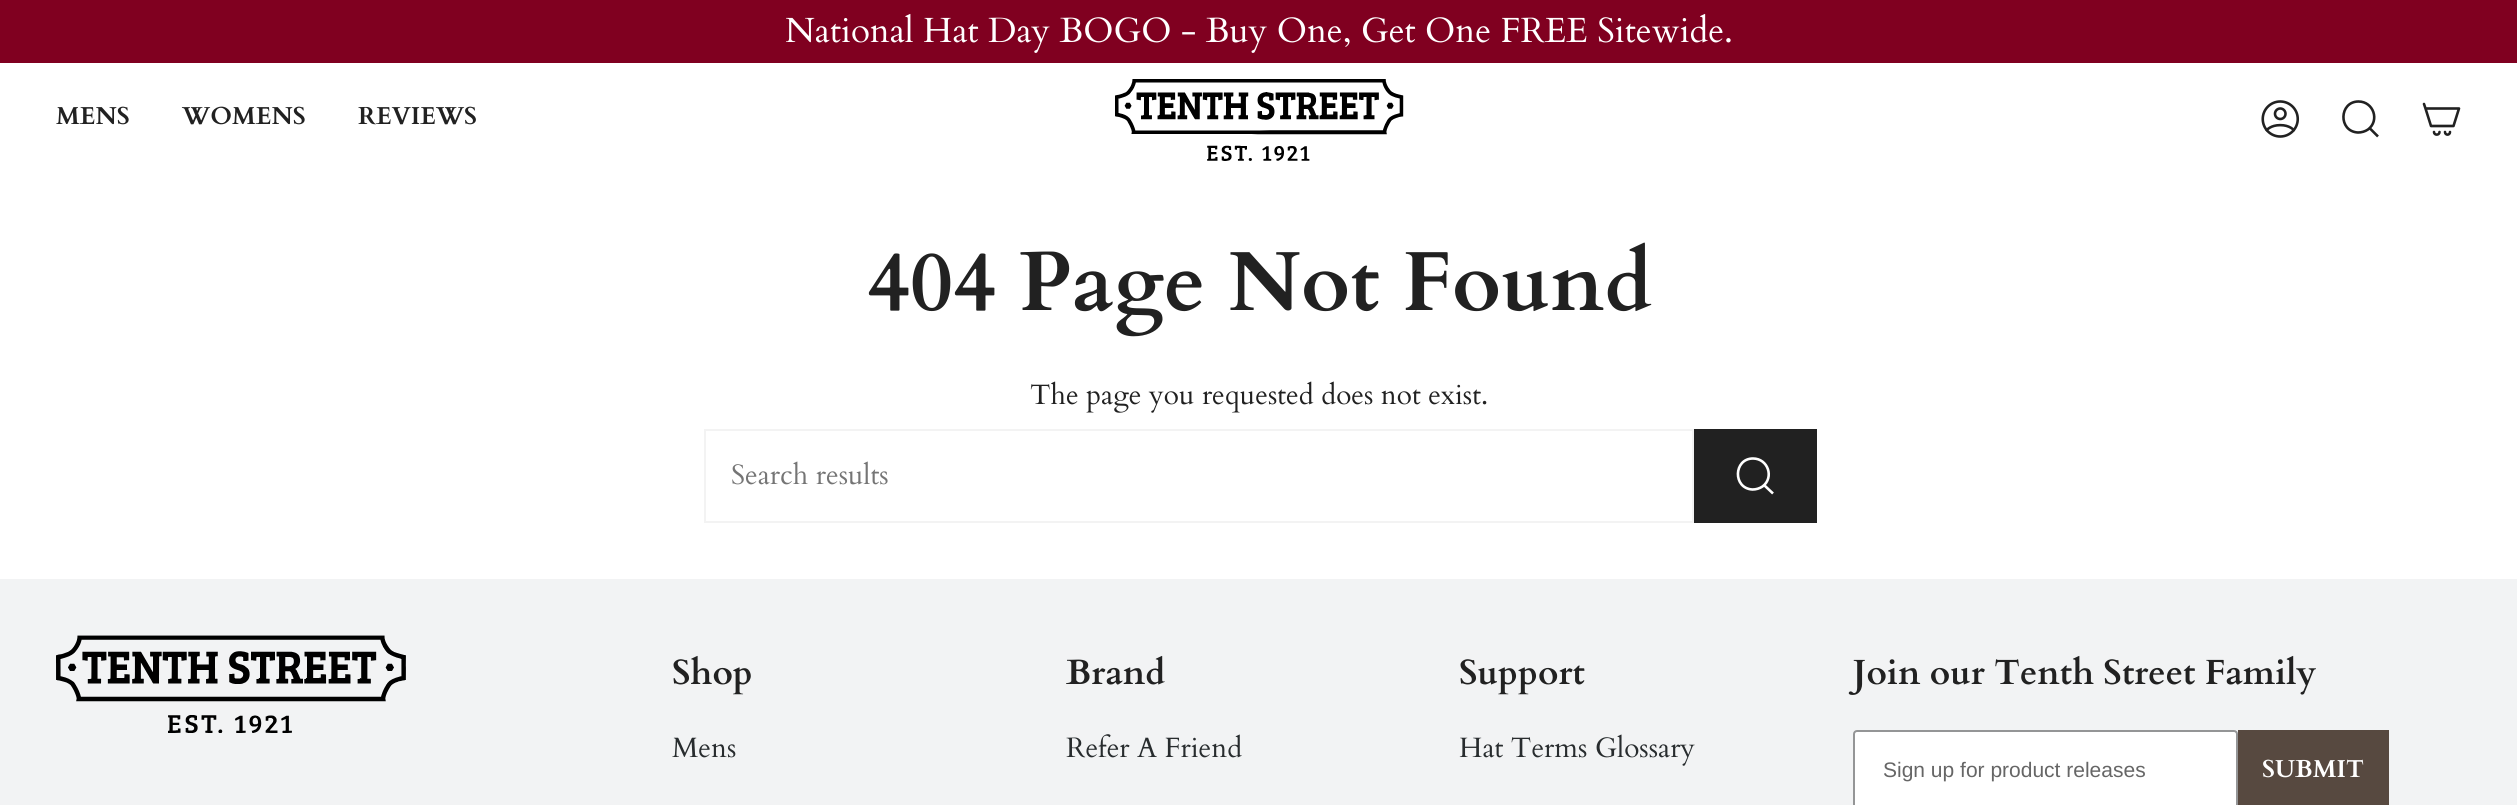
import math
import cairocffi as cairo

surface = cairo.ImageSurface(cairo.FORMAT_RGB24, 2517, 805)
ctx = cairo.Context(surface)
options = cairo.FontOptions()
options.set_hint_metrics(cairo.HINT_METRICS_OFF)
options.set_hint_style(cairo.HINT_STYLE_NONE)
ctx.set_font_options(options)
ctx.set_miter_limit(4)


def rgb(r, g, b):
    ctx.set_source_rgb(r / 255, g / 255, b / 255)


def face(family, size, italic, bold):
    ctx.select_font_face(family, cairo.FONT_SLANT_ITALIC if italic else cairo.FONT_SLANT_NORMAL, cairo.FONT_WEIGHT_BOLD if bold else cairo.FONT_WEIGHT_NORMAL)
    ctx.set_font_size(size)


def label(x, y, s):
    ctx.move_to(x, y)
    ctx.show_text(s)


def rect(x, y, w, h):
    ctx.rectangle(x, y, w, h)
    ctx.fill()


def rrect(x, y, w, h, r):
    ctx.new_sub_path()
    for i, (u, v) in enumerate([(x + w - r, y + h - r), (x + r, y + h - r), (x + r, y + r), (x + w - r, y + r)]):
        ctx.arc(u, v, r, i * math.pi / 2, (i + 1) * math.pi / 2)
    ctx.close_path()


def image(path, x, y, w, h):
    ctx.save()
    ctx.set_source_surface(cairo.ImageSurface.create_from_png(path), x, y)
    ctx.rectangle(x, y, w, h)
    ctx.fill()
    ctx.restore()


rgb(255, 255, 255)
ctx.paint()
rgb(128, 0, 32)
rect(0, 0, 2517, 63)
face('Cardo', 35, 0, 0)
rgb(255, 255, 255)
label(785, 42, 'National Hat Day BOGO - Buy One, Get One FREE Sitewide.')
face('Cardo', 24.5, 0, 1)
rgb(33, 33, 33)
label(56, 124, 'MENS')
label(182, 124, 'WOMENS')
label(358, 124, 'REVIEWS')
image('image0.png', 1115, 79, 289, 82)
image('image1.png', 2261, 100, 39, 38)
ctx.new_path()
ctx.move_to(2358.5, 101.5)
ctx.curve_to(2373.5, 101.5, 2380, 120.5, 2368, 129.5)
ctx.curve_to(2365, 131.5, 2361.5, 132.5, 2358, 132.5)
ctx.curve_to(2338, 131.5, 2339, 101.5, 2358.5, 101.5)
ctx.close_path()
ctx.move_to(2369.5, 128)
ctx.line_to(2378, 136.5)
ctx.set_line_width(2.6)
ctx.stroke()
ctx.new_path()
ctx.move_to(2425.5, 108.5)
ctx.line_to(2459, 108.5)
ctx.line_to(2453.5, 126)
ctx.line_to(2431, 126)
ctx.close_path()
ctx.move_to(2425.5, 108.5)
ctx.line_to(2424, 104)
ctx.move_to(2439.5, 132)
ctx.curve_to(2439.5, 135.5, 2434, 135.5, 2434, 132)
ctx.move_to(2450, 132)
ctx.curve_to(2450, 135.5, 2445, 135.5, 2445, 132)
ctx.set_line_cap(cairo.LINE_CAP_ROUND)
ctx.set_line_join(cairo.LINE_JOIN_ROUND)
ctx.stroke()
face('Cardo', 84, 0, 1)
label(867, 310, '404 Page Not Found')
face('Cardo', 28, 0, 0)
label(1030, 404, 'The page you requested does not exist.')
ctx.rectangle(705, 430, 988, 92)
rgb(243, 243, 243)
ctx.set_line_width(2)
ctx.set_line_cap(cairo.LINE_CAP_BUTT)
ctx.set_line_join(cairo.LINE_JOIN_MITER)
ctx.stroke()
rgb(117, 117, 117)
label(731, 484, 'Search results')
rgb(33, 33, 33)
rect(1694, 429, 123, 94)
ctx.new_path()
ctx.move_to(1753, 458.5)
ctx.curve_to(1768, 458.5, 1774.5, 477.5, 1762.5, 486.5)
ctx.curve_to(1759.5, 488.5, 1756, 489.5, 1752.5, 489.5)
ctx.curve_to(1732.5, 488.5, 1733.5, 458.5, 1753, 458.5)
ctx.close_path()
ctx.move_to(1764, 485)
ctx.line_to(1773, 493.5)
rgb(255, 255, 255)
ctx.set_line_width(2.6)
ctx.stroke()
rgb(242, 243, 244)
rect(0, 579, 2517, 226)
image('image2.png', 56, 635, 350, 98)
face('Cardo', 35, 0, 1)
rgb(33, 33, 33)
label(672, 684, 'Shop')
face('Cardo', 28, 0, 0)
rgb(40, 44, 46)
label(672, 757, 'Mens')
face('Cardo', 35, 0, 1)
rgb(33, 33, 33)
label(1066, 684, 'Brand')
face('Cardo', 28, 0, 0)
rgb(40, 44, 46)
label(1066, 757, 'Refer A Friend')
face('Cardo', 35, 0, 1)
rgb(33, 33, 33)
label(1459, 684, 'Support')
face('Cardo', 28, 0, 0)
rgb(40, 44, 46)
label(1459, 757, 'Hat Terms Glossary')
face('Cardo', 35, 0, 1)
rgb(33, 33, 33)
label(1853, 684, 'Join our Tenth Street Family')
rgb(255, 255, 255)
rrect(1854, 731, 383, 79, 3)
ctx.fill_preserve()
rgb(148, 149, 150)
ctx.set_line_width(2)
ctx.stroke()
face('Liberation Sans', 21, 0, 0)
rgb(102, 102, 102)
label(1883, 777, 'Sign up for product releases')
rgb(87, 73, 64)
rect(2238, 730, 151, 75)
face('Cardo', 24.5, 0, 1)
rgb(255, 255, 255)
label(2262, 777, 'SUBMIT')
surface.write_to_png('render.png')
